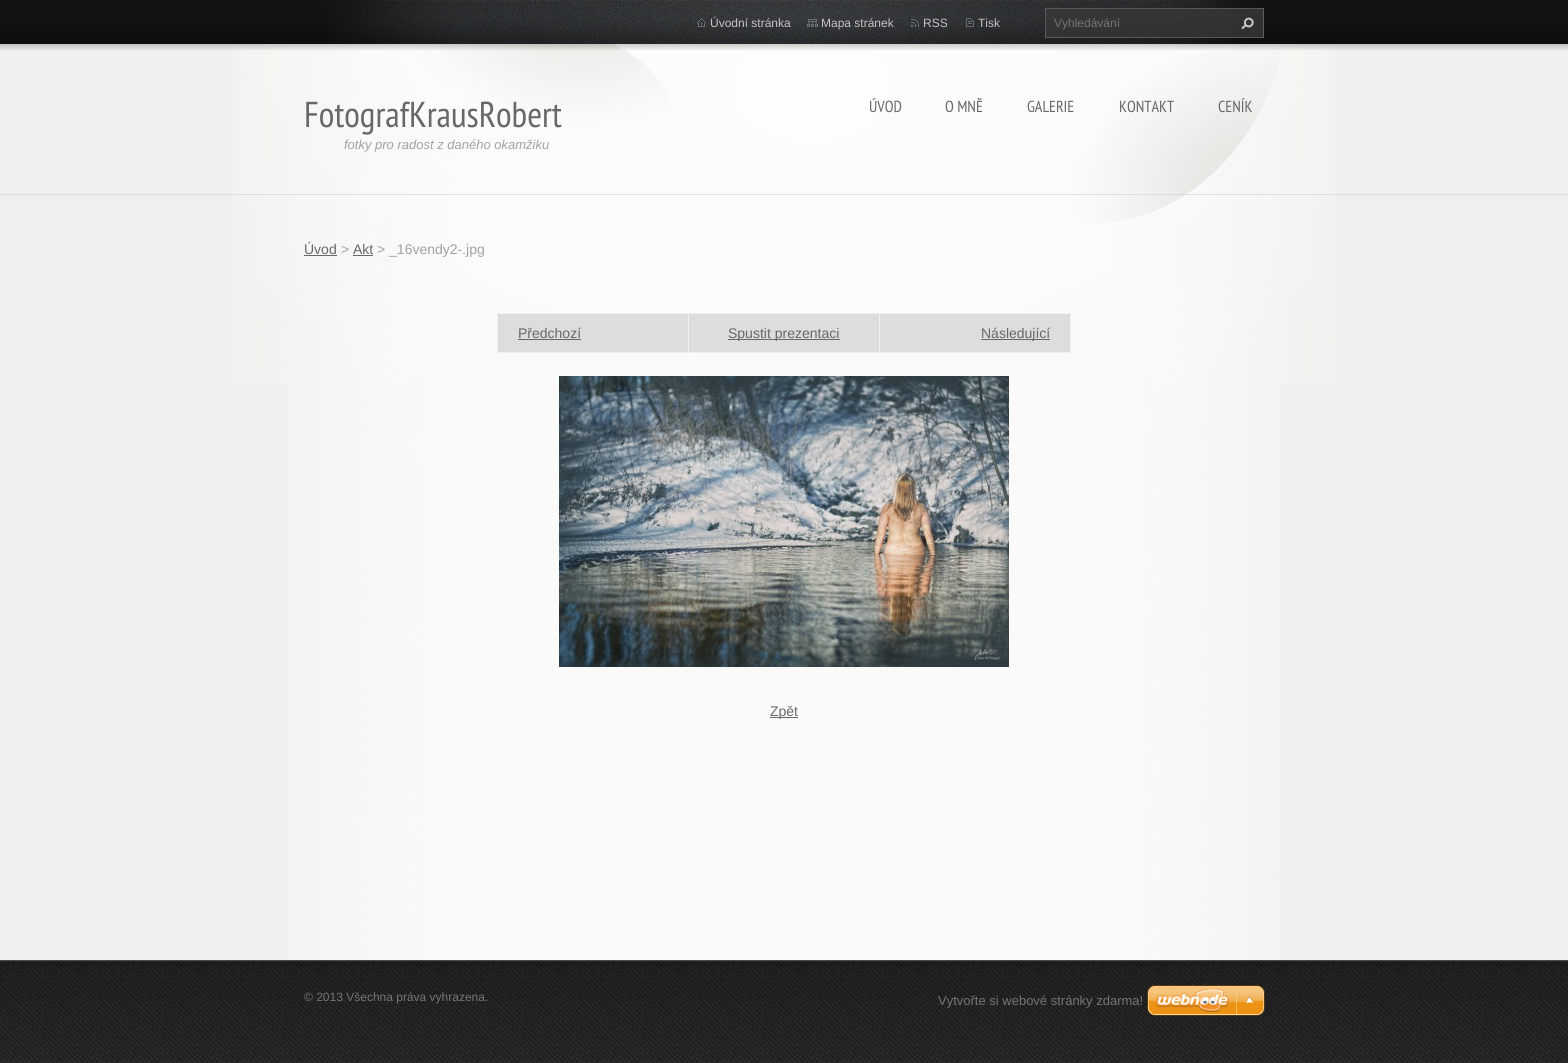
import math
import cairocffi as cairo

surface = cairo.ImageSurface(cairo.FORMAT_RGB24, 1568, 1063)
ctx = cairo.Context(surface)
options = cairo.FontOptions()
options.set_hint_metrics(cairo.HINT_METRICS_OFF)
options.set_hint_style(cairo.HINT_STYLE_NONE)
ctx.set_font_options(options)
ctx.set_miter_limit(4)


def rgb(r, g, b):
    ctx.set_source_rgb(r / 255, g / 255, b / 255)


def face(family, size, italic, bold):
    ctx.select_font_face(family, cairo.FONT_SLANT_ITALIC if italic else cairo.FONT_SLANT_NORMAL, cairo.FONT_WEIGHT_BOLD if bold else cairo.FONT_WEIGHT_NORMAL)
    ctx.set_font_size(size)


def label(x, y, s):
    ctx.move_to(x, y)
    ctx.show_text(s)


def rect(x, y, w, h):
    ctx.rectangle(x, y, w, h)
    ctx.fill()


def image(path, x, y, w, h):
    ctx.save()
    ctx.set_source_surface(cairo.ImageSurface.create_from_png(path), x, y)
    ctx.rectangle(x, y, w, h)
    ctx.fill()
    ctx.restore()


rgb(239, 239, 237)
ctx.paint()
image('image0.png', 288, 384, 992, 576)
image('image1.png', 232, 44, 1104, 340)
ctx.set_source_rgba(0.62, 0.62, 0.62, 0.26)
rect(0, 194, 1568, 1)
image('image2.png', 0, 0, 1568, 50)
image('image3.png', 304, 0, 960, 44)
image('image4.png', 697, 18, 9, 9)
face('Liberation Sans', 12, 0, 0)
rgb(195, 195, 195)
label(710, 27, 'Úvodní stránka')
image('image5.png', 807, 19, 11, 8)
label(821, 27, 'Mapa stránek')
image('image6.png', 911, 19, 8, 8)
label(923, 27, 'RSS')
image('image7.png', 966, 18, 8, 9)
label(978, 27, 'Tisk')
image('image8.png', 1045, 8, 219, 30)
rgb(117, 117, 117)
label(1054, 27, 'Vyhledávání')
image('image9.png', 1241, 17, 13, 13)
face('PT Sans Narrow', 36, 0, 0)
rgb(104, 104, 104)
label(304, 127, 'FotografKrausRobert')
face('Liberation Sans', 13, 1, 0)
rgb(163, 161, 161)
label(344, 149, 'fotky pro radost z daného okamžiku')
face('PT Sans Narrow', 16, 0, 0)
rgb(104, 104, 104)
label(869, 112, 'ÚVOD')
label(945, 112, 'O MNĚ')
label(1027, 112, 'GALERIE')
label(1119, 112, 'KONTAKT')
label(1218, 112, 'CENÍK')
face('Liberation Sans', 14, 0, 0)
label(304, 254, 'Úvod')
rect(304, 255, 33, 1)
rgb(163, 161, 161)
label(341, 254, '>')
rgb(104, 104, 104)
label(353, 254, 'Akt')
rect(353, 255, 20, 1)
rgb(163, 161, 161)
label(377, 254, '> _16vendy2-.jpg')
rgb(239, 239, 237)
rect(497, 313, 574, 1)
rect(497, 313, 1, 40)
rgb(221, 221, 221)
rect(498, 314, 190, 38)
rgb(239, 239, 237)
rect(1070, 313, 1, 40)
rect(879, 352, 192, 1)
rect(879, 313, 1, 40)
rect(688, 352, 192, 1)
rect(688, 313, 1, 40)
rect(497, 352, 192, 1)
rgb(104, 104, 104)
label(518, 338, 'Předchozí')
rect(518, 339, 63, 1)
rgb(221, 221, 221)
rect(689, 314, 190, 38)
rgb(104, 104, 104)
rect(728, 339, 112, 1)
label(728, 338, 'Spustit prezentaci')
rgb(221, 221, 221)
rect(880, 314, 190, 38)
rgb(104, 104, 104)
rect(981, 339, 69, 1)
label(981, 338, 'Následující')
image('image10.png', 559, 376, 450, 291)
rect(770, 717, 28, 1)
label(770, 716, 'Zpět')
image('image11.png', 0, 960, 1568, 103)
face('Liberation Sans', 12, 0, 0)
rgb(117, 117, 117)
label(304, 1001, '© 2013 Všechna práva vyhrazena.')
face('Liberation Sans', 13, 0, 0)
label(938, 1005, 'Vytvořte si webové stránky zdarma!')
image('image12.png', 1147, 985, 118, 31)
surface.write_to_png('render.png')
